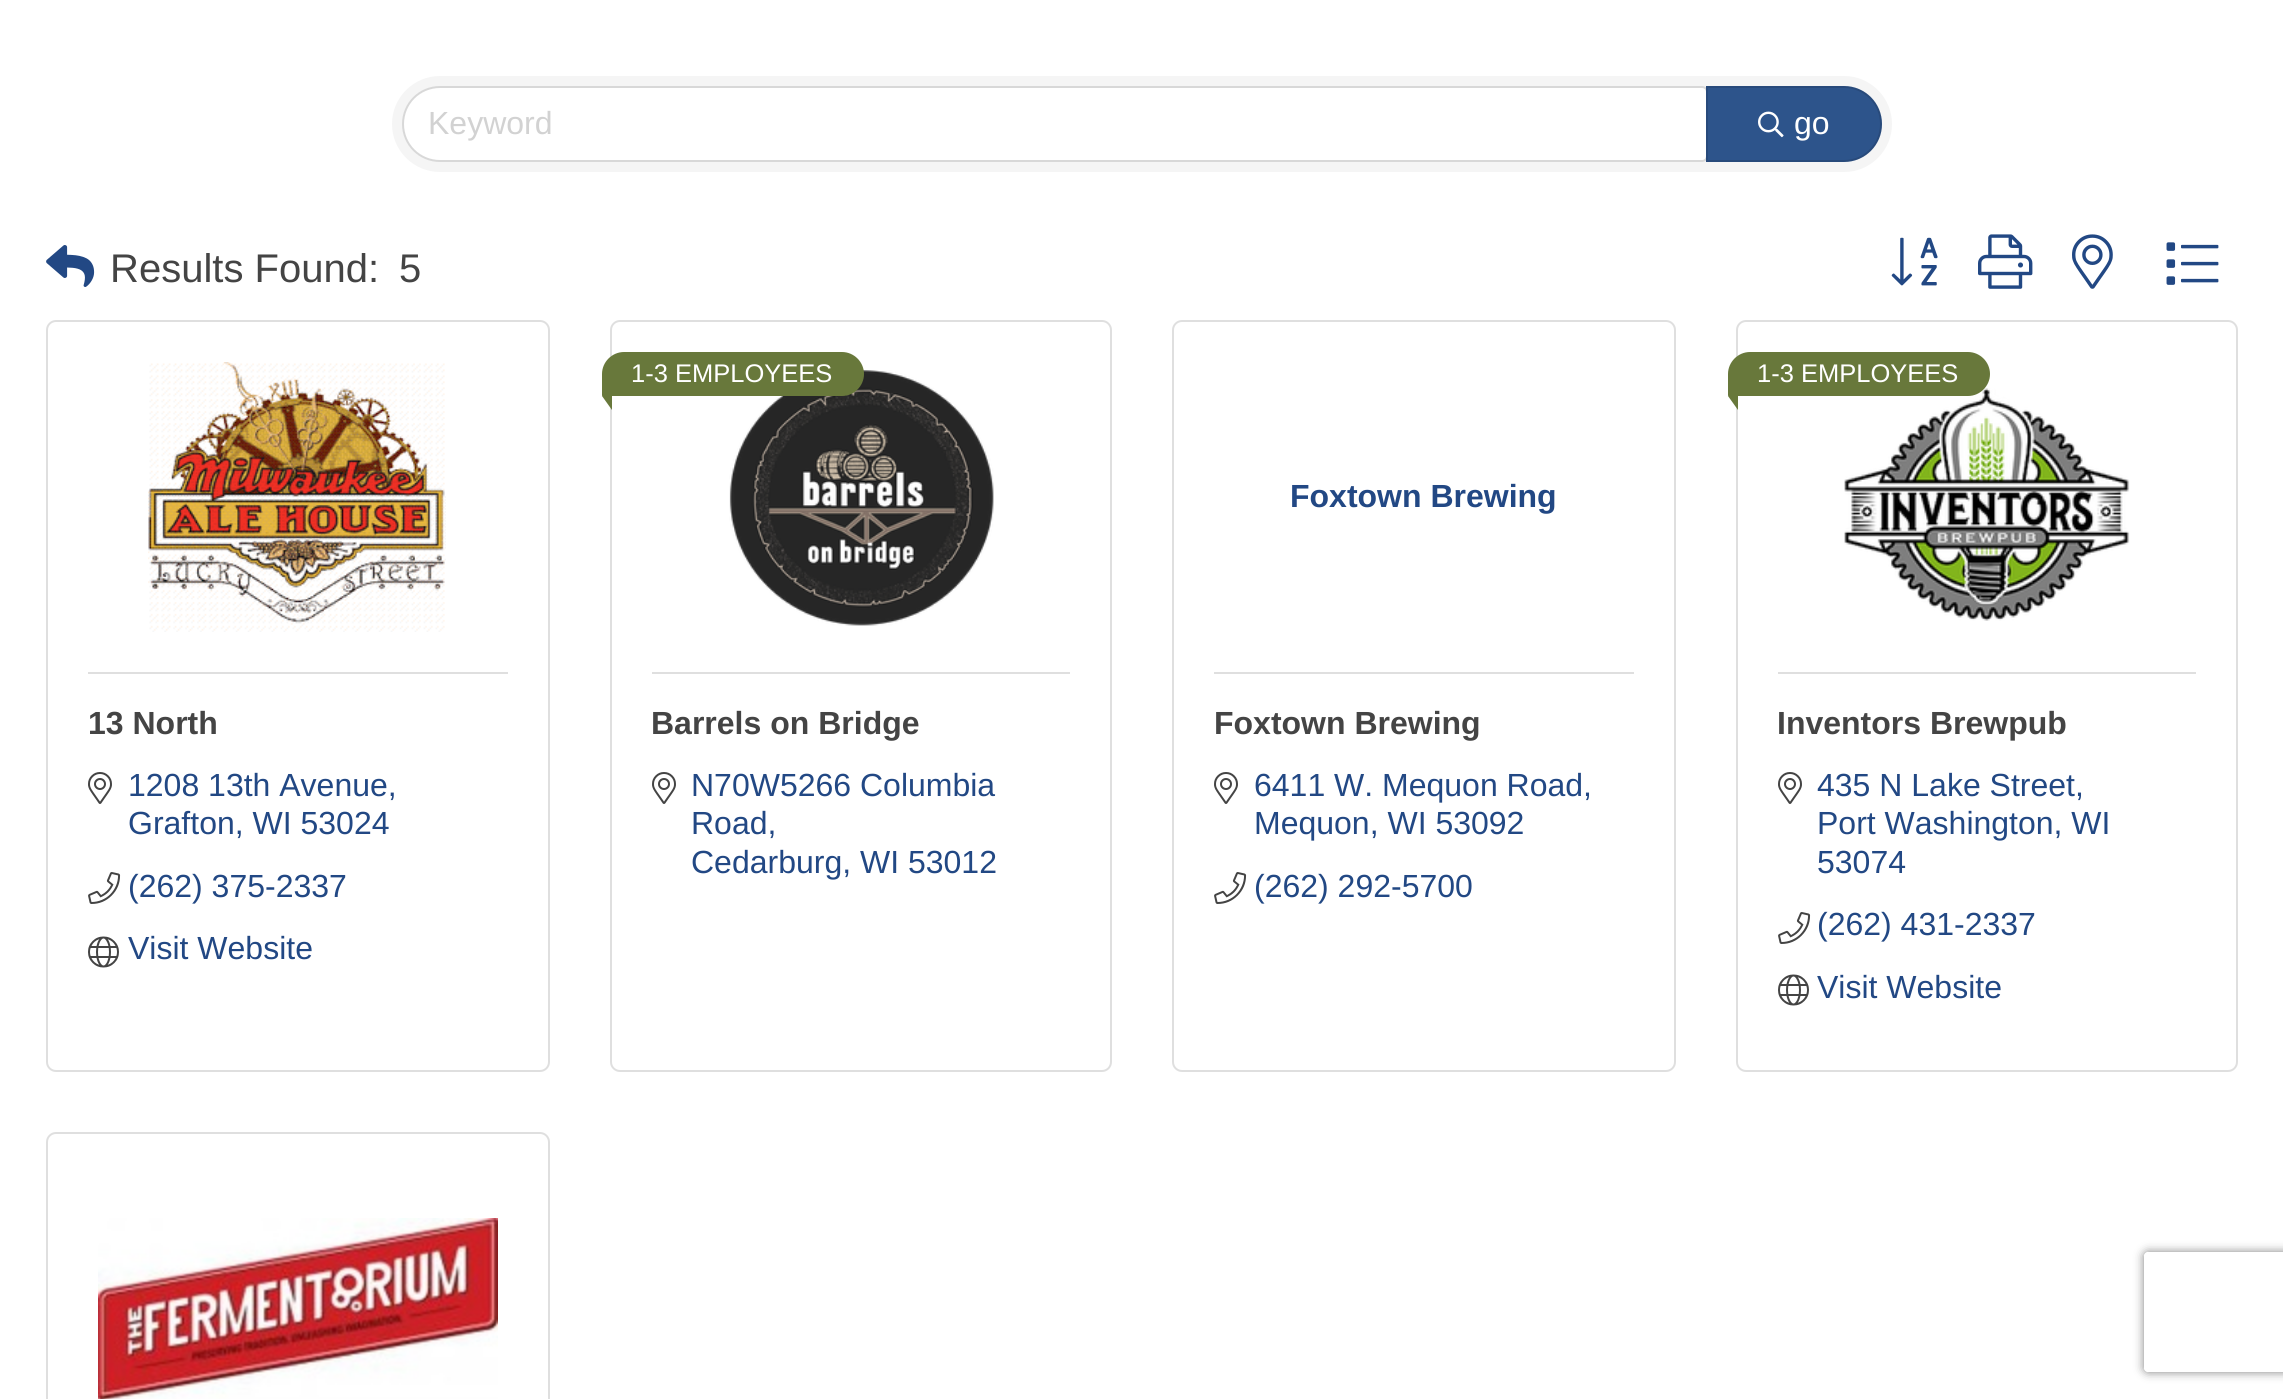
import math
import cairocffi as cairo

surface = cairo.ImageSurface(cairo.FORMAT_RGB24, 2283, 1399)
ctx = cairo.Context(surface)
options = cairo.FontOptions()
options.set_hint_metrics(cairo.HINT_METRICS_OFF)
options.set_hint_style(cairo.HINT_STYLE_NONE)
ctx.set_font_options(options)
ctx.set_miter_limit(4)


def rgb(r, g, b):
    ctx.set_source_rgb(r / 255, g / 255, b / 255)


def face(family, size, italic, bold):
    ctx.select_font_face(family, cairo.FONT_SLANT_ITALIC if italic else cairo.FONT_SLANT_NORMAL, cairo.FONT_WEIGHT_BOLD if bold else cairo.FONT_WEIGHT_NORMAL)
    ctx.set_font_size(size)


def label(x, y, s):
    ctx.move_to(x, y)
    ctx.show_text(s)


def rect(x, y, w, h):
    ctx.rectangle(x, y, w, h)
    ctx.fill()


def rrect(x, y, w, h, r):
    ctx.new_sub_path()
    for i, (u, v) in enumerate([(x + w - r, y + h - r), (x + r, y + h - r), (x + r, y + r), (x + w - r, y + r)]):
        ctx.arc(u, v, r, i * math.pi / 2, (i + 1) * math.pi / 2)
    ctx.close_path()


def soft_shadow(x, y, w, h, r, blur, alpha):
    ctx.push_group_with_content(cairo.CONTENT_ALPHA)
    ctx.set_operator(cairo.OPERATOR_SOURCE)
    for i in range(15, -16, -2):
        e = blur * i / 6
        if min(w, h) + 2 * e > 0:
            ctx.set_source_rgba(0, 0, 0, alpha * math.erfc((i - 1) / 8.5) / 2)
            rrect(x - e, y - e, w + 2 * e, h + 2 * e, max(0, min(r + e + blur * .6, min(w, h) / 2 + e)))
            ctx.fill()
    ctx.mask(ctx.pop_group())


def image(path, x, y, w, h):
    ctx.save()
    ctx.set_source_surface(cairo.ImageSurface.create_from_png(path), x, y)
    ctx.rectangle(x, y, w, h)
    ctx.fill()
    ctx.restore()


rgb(255, 255, 255)
ctx.paint()
rgb(245, 245, 245)
rrect(392, 76, 1500, 96, 48)
ctx.fill()
rgb(255, 255, 255)
ctx.new_path()
ctx.move_to(440, 88)
ctx.line_to(1702, 88)
ctx.curve_to(1704, 88, 1706, 90, 1706, 92)
ctx.line_to(1706, 156)
ctx.curve_to(1706, 158, 1704, 160, 1702, 160)
ctx.line_to(440, 160)
ctx.curve_to(420, 160, 404, 144, 404, 124)
ctx.curve_to(404, 104, 420, 88, 440, 88)
ctx.close_path()
ctx.fill()
ctx.new_path()
ctx.move_to(440, 87)
ctx.line_to(1702, 87)
ctx.curve_to(1705, 87, 1707, 89, 1707, 92)
ctx.line_to(1707, 156)
ctx.curve_to(1707, 159, 1705, 161, 1702, 161)
ctx.line_to(440, 161)
ctx.curve_to(419.5, 161, 403, 144.5, 403, 124)
ctx.curve_to(403, 103.5, 419.5, 87, 440, 87)
ctx.close_path()
ctx.set_source_rgba(0, 0, 0, 0.12)
ctx.stroke()
face('Liberation Sans', 32, 0, 0)
rgb(210, 210, 210)
label(428, 134, 'Keyword')
rgb(45, 84, 139)
ctx.new_path()
ctx.move_to(1706, 86)
ctx.line_to(1844, 86)
ctx.curve_to(1865, 86, 1882, 103, 1882, 124)
ctx.curve_to(1882, 145, 1865, 162, 1844, 162)
ctx.line_to(1706, 162)
ctx.close_path()
ctx.fill()
ctx.new_path()
ctx.move_to(1707, 87)
ctx.line_to(1844, 87)
ctx.curve_to(1864.5, 87, 1881, 103.5, 1881, 124)
ctx.curve_to(1881, 144.5, 1864.5, 161, 1844, 161)
ctx.line_to(1707, 161)
ctx.close_path()
ctx.set_source_rgba(0, 0, 0, 0.12)
ctx.stroke()
image('image0.png', 1758, 111, 26, 27)
rgb(255, 255, 255)
label(1794, 134, 'go')
image('image1.png', 46, 245, 49, 42)
face('Liberation Sans', 40, 0, 0)
rgb(68, 68, 68)
label(110, 282, 'Results Found:')
label(399, 282, '5')
image('image2.png', 1891, 237, 47, 49)
image('image3.png', 1978, 234, 55, 55)
image('image4.png', 2072, 234, 41, 55)
image('image5.png', 2166, 242, 53, 43)
rrect(47, 321, 502, 750, 9)
rgb(223, 223, 223)
ctx.stroke()
image('image6.png', 148, 362, 298, 270)
rect(88, 672, 420, 2)
face('Liberation Sans', 32, 0, 1)
rgb(68, 68, 68)
label(88, 734, '13 North')
image('image7.png', 88, 772, 24, 32)
face('Liberation Sans', 32, 0, 0)
rgb(34, 72, 132)
label(128, 796, '1208 13th Avenue,')
label(128, 834, 'Grafton, WI 53024')
image('image8.png', 88, 872, 33, 32)
label(128, 897, '(262) 375-2337')
image('image9.png', 88, 936, 31, 32)
label(128, 959, 'Visit Website')
rrect(611, 321, 500, 750, 9)
rgb(223, 223, 223)
ctx.stroke()
image('image10.png', 729, 370, 265, 256)
rgb(104, 120, 59)
ctx.new_path()
ctx.move_to(624, 352)
ctx.line_to(842, 352)
ctx.curve_to(854, 352, 864, 362, 864, 374)
ctx.curve_to(864, 386, 854, 396, 842, 396)
ctx.line_to(603, 396)
ctx.curve_to(602.5, 396, 602, 395.5, 602, 395)
ctx.line_to(602, 374)
ctx.curve_to(602, 362, 612, 352, 624, 352)
ctx.close_path()
ctx.fill()
face('Liberation Sans', 25.5, 0, 0)
rgb(255, 255, 255)
label(631, 382, '1-3 EMPLOYEES')
rgb(104, 120, 59)
ctx.new_path()
ctx.move_to(612, 382)
ctx.line_to(612, 410)
ctx.line_to(602, 396)
ctx.close_path()
ctx.fill()
rgb(223, 223, 223)
rect(652, 672, 418, 2)
face('Liberation Sans', 32, 0, 1)
rgb(68, 68, 68)
label(651, 734, 'Barrels on Bridge')
image('image7.png', 652, 772, 24, 32)
face('Liberation Sans', 32, 0, 0)
rgb(34, 72, 132)
label(691, 796, 'N70W5266 Columbia')
label(691, 834, 'Road,')
label(691, 873, 'Cedarburg, WI 53012')
rrect(1173, 321, 502, 750, 9)
rgb(223, 223, 223)
ctx.stroke()
face('Liberation Sans', 32, 0, 1)
rgb(34, 72, 132)
label(1290, 507, 'Foxtown Brewing')
rgb(223, 223, 223)
rect(1214, 672, 420, 2)
rgb(68, 68, 68)
label(1214, 734, 'Foxtown Brewing')
image('image7.png', 1214, 772, 24, 32)
face('Liberation Sans', 32, 0, 0)
rgb(34, 72, 132)
label(1254, 796, '6411 W. Mequon Road,')
label(1254, 834, 'Mequon, WI 53092')
image('image8.png', 1214, 872, 33, 32)
label(1254, 897, '(262) 292-5700')
rrect(1737, 321, 500, 750, 9)
rgb(223, 223, 223)
ctx.stroke()
image('image11.png', 1844, 388, 286, 233)
rgb(104, 120, 59)
ctx.new_path()
ctx.move_to(1750, 352)
ctx.line_to(1968, 352)
ctx.curve_to(1980, 352, 1990, 362, 1990, 374)
ctx.curve_to(1990, 386, 1980, 396, 1968, 396)
ctx.line_to(1729, 396)
ctx.curve_to(1728.5, 396, 1728, 395.5, 1728, 395)
ctx.line_to(1728, 374)
ctx.curve_to(1728, 362, 1738, 352, 1750, 352)
ctx.close_path()
ctx.fill()
face('Liberation Sans', 25.5, 0, 0)
rgb(255, 255, 255)
label(1757, 382, '1-3 EMPLOYEES')
rgb(104, 120, 59)
ctx.new_path()
ctx.move_to(1738, 382)
ctx.line_to(1738, 410)
ctx.line_to(1728, 396)
ctx.close_path()
ctx.fill()
rgb(223, 223, 223)
rect(1778, 672, 418, 2)
face('Liberation Sans', 32, 0, 1)
rgb(68, 68, 68)
label(1777, 734, 'Inventors Brewpub')
image('image7.png', 1778, 772, 24, 32)
face('Liberation Sans', 32, 0, 0)
rgb(34, 72, 132)
label(1817, 796, '435 N Lake Street,')
label(1817, 834, 'Port Washington, WI')
label(1817, 873, '53074')
image('image8.png', 1778, 912, 33, 32)
label(1817, 935, '(262) 431-2337')
image('image9.png', 1778, 974, 31, 32)
label(1817, 998, 'Visit Website')
rrect(47, 1133, 502, 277, 9)
rgb(223, 223, 223)
ctx.stroke()
image('image12.png', 98, 1218, 400, 181)
ctx.save()
ctx.set_fill_rule(cairo.FILL_RULE_EVEN_ODD)
ctx.new_path()
ctx.move_to(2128, 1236)
ctx.line_to(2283, 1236)
ctx.line_to(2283, 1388)
ctx.line_to(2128, 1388)
ctx.close_path()
ctx.move_to(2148, 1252)
ctx.line_to(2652, 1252)
ctx.curve_to(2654, 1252, 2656, 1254, 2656, 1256)
ctx.line_to(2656, 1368)
ctx.curve_to(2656, 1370, 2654, 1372, 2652, 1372)
ctx.line_to(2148, 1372)
ctx.curve_to(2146, 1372, 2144, 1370, 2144, 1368)
ctx.line_to(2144, 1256)
ctx.curve_to(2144, 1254, 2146, 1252, 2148, 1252)
ctx.close_path()
ctx.clip()
rgb(128, 128, 128)
soft_shadow(2144, 1252, 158, 120, 4, 5, 1)
ctx.restore()
surface.write_to_png('render.png')
